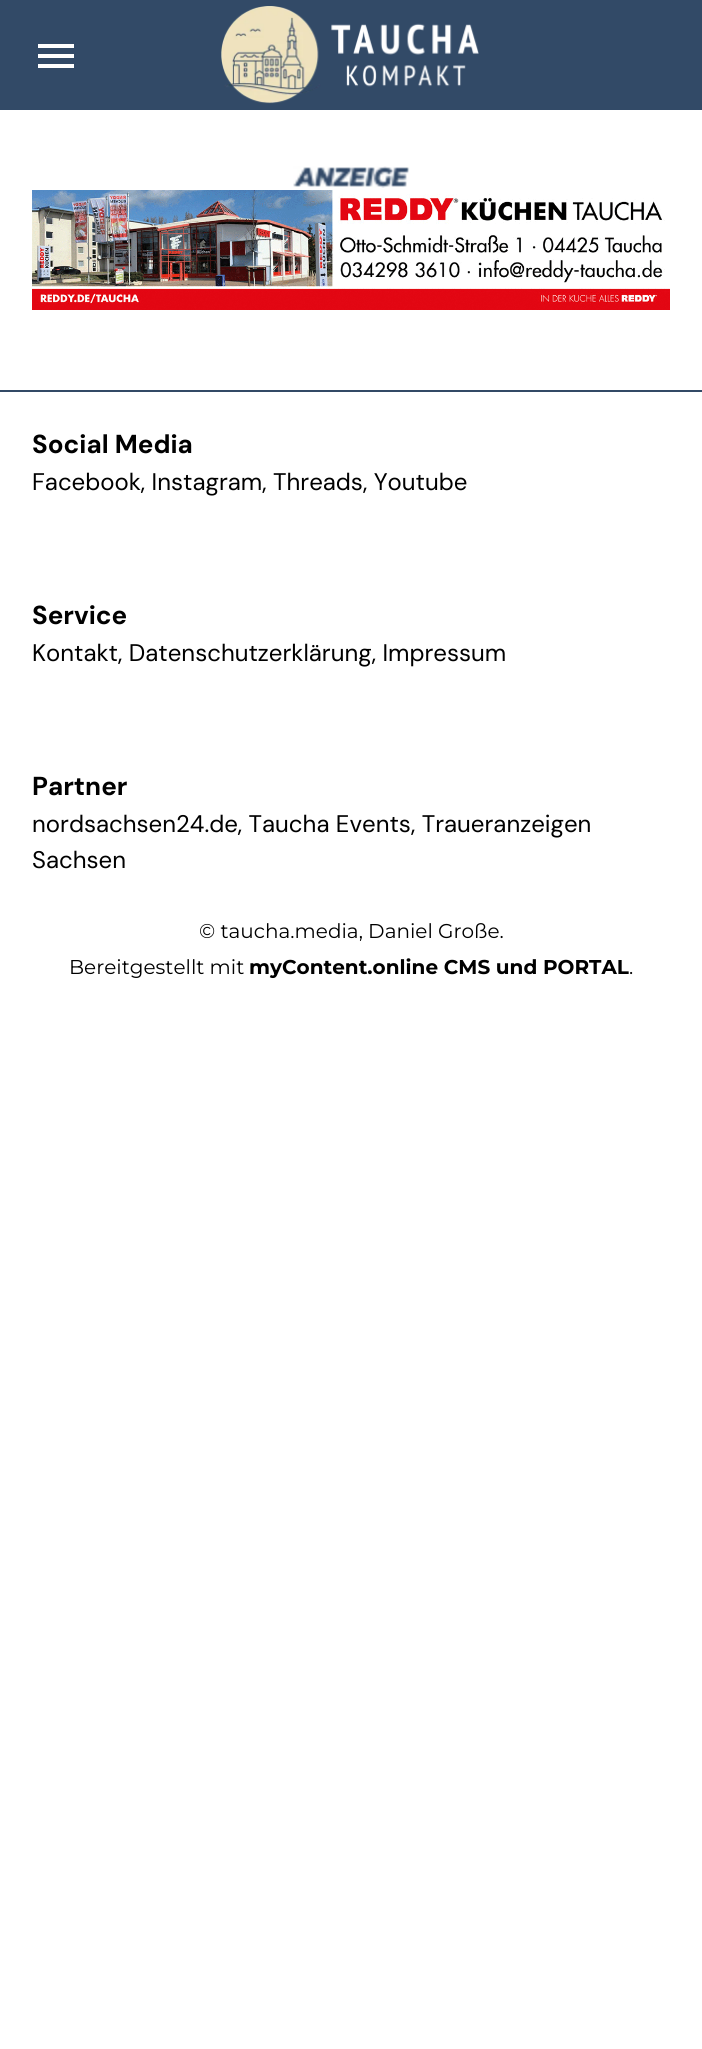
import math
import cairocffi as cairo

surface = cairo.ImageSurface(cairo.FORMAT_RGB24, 702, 2049)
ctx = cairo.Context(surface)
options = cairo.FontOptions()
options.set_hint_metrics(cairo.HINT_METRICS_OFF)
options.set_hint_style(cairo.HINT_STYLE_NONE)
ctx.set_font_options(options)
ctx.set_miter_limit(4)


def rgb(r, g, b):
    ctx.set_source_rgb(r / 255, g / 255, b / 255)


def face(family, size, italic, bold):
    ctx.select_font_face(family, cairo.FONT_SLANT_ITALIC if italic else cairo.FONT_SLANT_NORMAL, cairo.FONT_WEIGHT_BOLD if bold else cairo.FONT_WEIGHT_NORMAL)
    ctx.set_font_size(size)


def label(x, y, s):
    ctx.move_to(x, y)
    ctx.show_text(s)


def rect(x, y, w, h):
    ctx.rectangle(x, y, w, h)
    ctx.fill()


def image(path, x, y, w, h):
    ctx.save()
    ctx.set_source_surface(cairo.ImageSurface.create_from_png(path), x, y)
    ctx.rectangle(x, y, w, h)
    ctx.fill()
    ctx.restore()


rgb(255, 255, 255)
ctx.paint()
rgb(50, 74, 103)
rect(0, 0, 702, 110)
rgb(255, 255, 255)
ctx.new_path()
ctx.move_to(38, 44)
ctx.line_to(74, 44)
ctx.line_to(74, 48)
ctx.line_to(38, 48)
ctx.close_path()
ctx.move_to(38, 58)
ctx.line_to(38, 54)
ctx.line_to(74, 54)
ctx.line_to(74, 58)
ctx.close_path()
ctx.move_to(38, 68)
ctx.line_to(38, 64)
ctx.line_to(74, 64)
ctx.line_to(74, 68)
ctx.close_path()
ctx.fill()
image('image0.png', 221, 6, 258, 98)
image('image1.png', 293, 166, 117, 22)
image('image2.png', 32, 190, 638, 120)
rgb(50, 74, 102)
rect(0, 390, 702, 2)
face('DM Sans', 26, 0, 1)
rgb(0, 0, 0)
label(32, 453, 'Social Media')
face('DM Sans', 24, 0, 0)
label(32, 490, 'Facebook, Instagram, Threads, Youtube')
face('DM Sans', 26, 0, 1)
label(32, 624, 'Service')
face('DM Sans', 24, 0, 0)
label(32, 661, 'Kontakt, Datenschutzerklärung, Impressum')
face('DM Sans', 26, 0, 1)
label(32, 795, 'Partner')
face('DM Sans', 24, 0, 0)
label(32, 832, 'nordsachsen24.de, Taucha Events, Traueranzeigen')
label(32, 868, 'Sachsen')
face('Montserrat', 20, 0, 0)
label(199, 938, '© taucha.media, Daniel Große.')
label(69, 974, 'Bereitgestellt mit')
face('Montserrat', 20, 0, 1)
label(249, 974, 'myContent.online CMS und PORTAL')
face('Montserrat', 20, 0, 0)
label(629, 974, '.')
surface.write_to_png('render.png')
